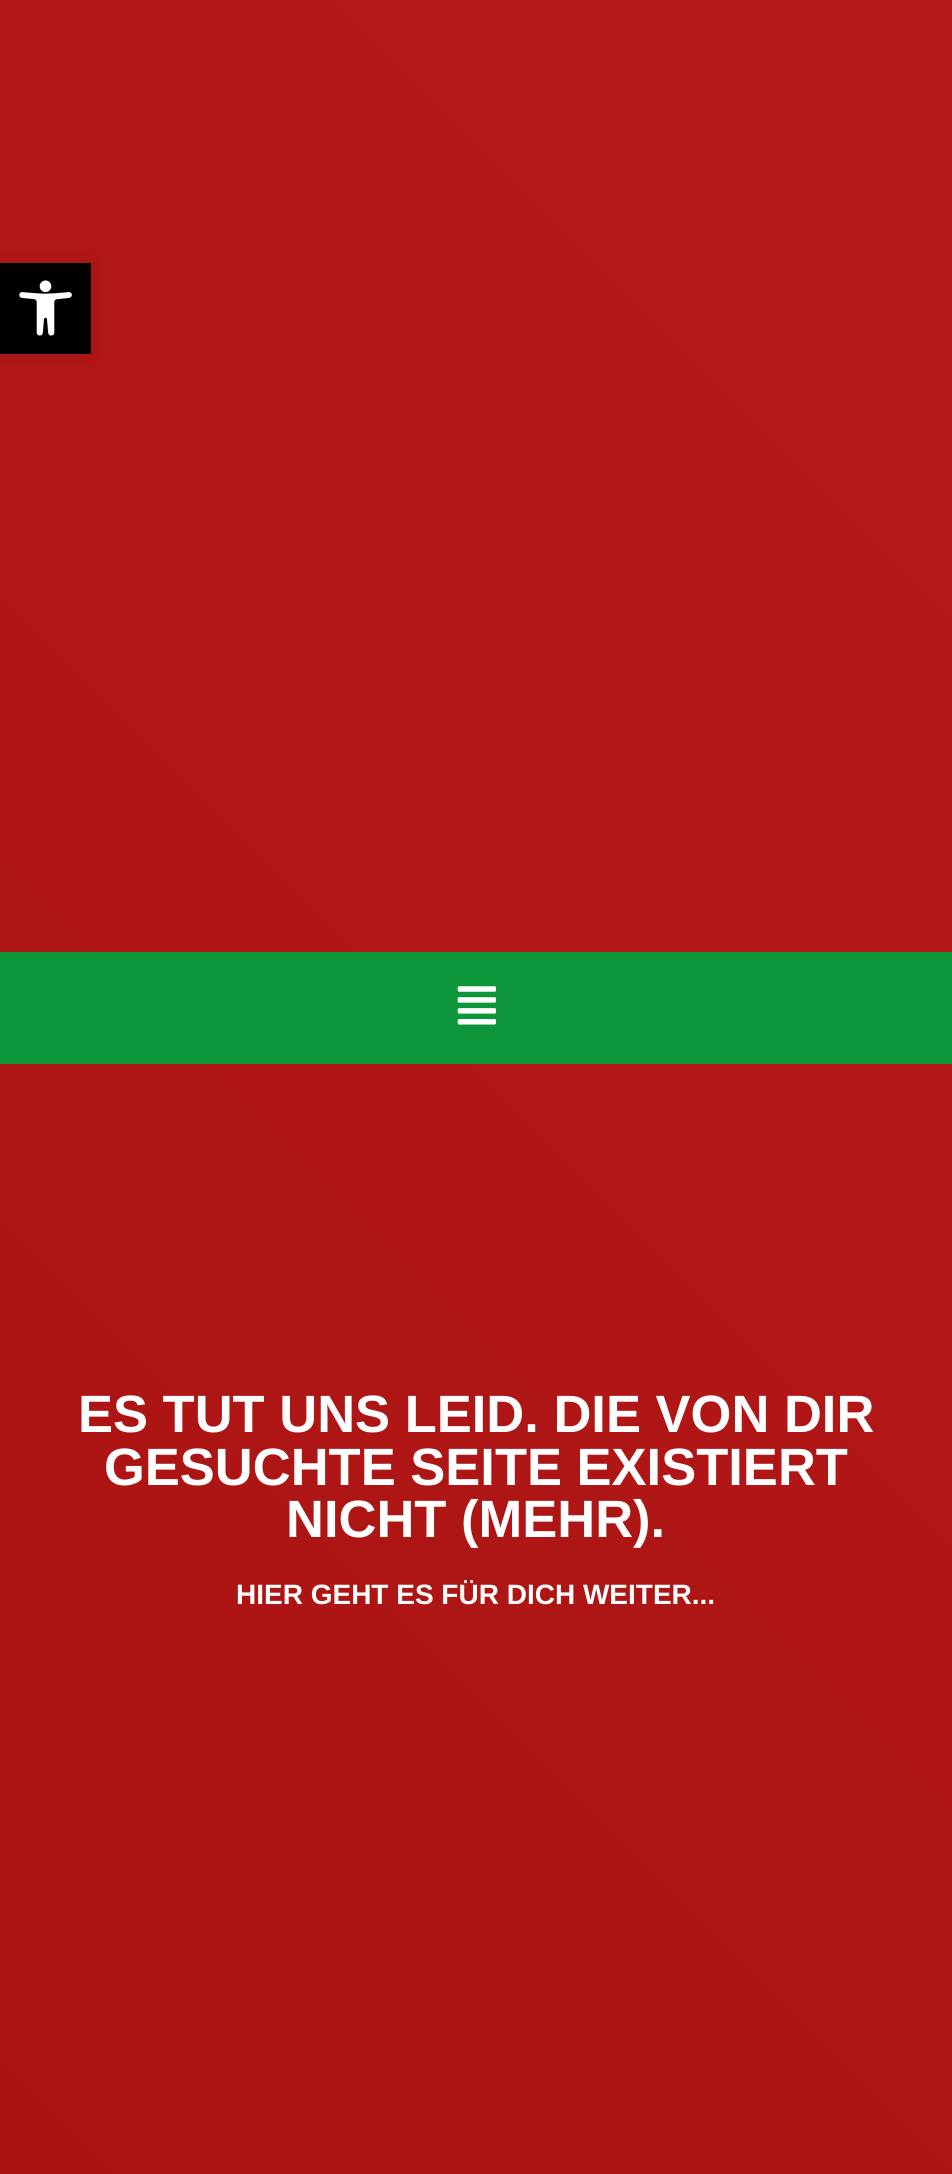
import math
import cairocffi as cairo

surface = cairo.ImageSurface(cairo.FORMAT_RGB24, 952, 2174)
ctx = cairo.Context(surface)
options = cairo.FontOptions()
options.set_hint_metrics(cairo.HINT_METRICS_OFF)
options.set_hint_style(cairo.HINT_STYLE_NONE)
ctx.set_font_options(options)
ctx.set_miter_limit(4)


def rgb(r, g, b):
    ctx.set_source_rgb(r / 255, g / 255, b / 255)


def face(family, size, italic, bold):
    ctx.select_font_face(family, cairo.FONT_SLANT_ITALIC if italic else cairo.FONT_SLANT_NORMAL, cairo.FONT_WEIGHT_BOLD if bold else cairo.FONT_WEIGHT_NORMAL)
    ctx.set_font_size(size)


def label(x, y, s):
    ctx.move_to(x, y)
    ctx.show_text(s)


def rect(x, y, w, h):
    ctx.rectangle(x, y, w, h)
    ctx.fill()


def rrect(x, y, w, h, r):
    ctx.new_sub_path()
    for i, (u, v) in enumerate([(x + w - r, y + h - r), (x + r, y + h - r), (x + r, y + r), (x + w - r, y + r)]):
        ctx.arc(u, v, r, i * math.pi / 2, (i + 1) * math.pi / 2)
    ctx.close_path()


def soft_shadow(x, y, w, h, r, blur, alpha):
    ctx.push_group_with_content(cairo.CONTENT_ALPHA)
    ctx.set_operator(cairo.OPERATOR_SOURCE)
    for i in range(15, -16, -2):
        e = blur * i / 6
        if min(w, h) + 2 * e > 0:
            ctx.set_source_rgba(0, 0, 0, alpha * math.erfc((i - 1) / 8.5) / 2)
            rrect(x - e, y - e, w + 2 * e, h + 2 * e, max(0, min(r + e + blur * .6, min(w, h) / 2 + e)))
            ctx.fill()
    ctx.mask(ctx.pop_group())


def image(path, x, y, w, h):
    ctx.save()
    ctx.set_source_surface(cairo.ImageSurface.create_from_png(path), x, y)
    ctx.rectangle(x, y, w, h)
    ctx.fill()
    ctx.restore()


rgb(255, 255, 255)
ctx.paint()
gradient = cairo.LinearGradient(-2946, 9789, 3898, 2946)
gradient.add_color_stop_rgba(0, 0.49, 0.012, 0.008, 1)
gradient.add_color_stop_rgba(1, 0.714, 0.098, 0.094, 1)
ctx.set_source(gradient)
rect(0, 0, 952, 2174)
rgb(0, 0, 0)
soft_shadow(0, 263, 91, 91, 0, 9, 0.1)
rgb(0, 0, 0)
rect(0, 263, 91, 91)
image('image0.png', 19, 280, 53, 56)
rgb(14, 150, 59)
rect(0, 952, 952, 112)
image('image1.png', 457, 986, 39, 39)
face('Liberation Sans', 52.5, 0, 1)
rgb(255, 255, 255)
label(78, 1432, 'ES TUT UNS LEID. DIE VON DIR')
label(104, 1485, 'GESUCHTE SEITE EXISTIERT')
label(286, 1537, 'NICHT (MEHR).')
face('Liberation Sans', 28, 0, 1)
label(236, 1604, 'HIER GEHT ES FÜR DICH WEITER...')
surface.write_to_png('render.png')
